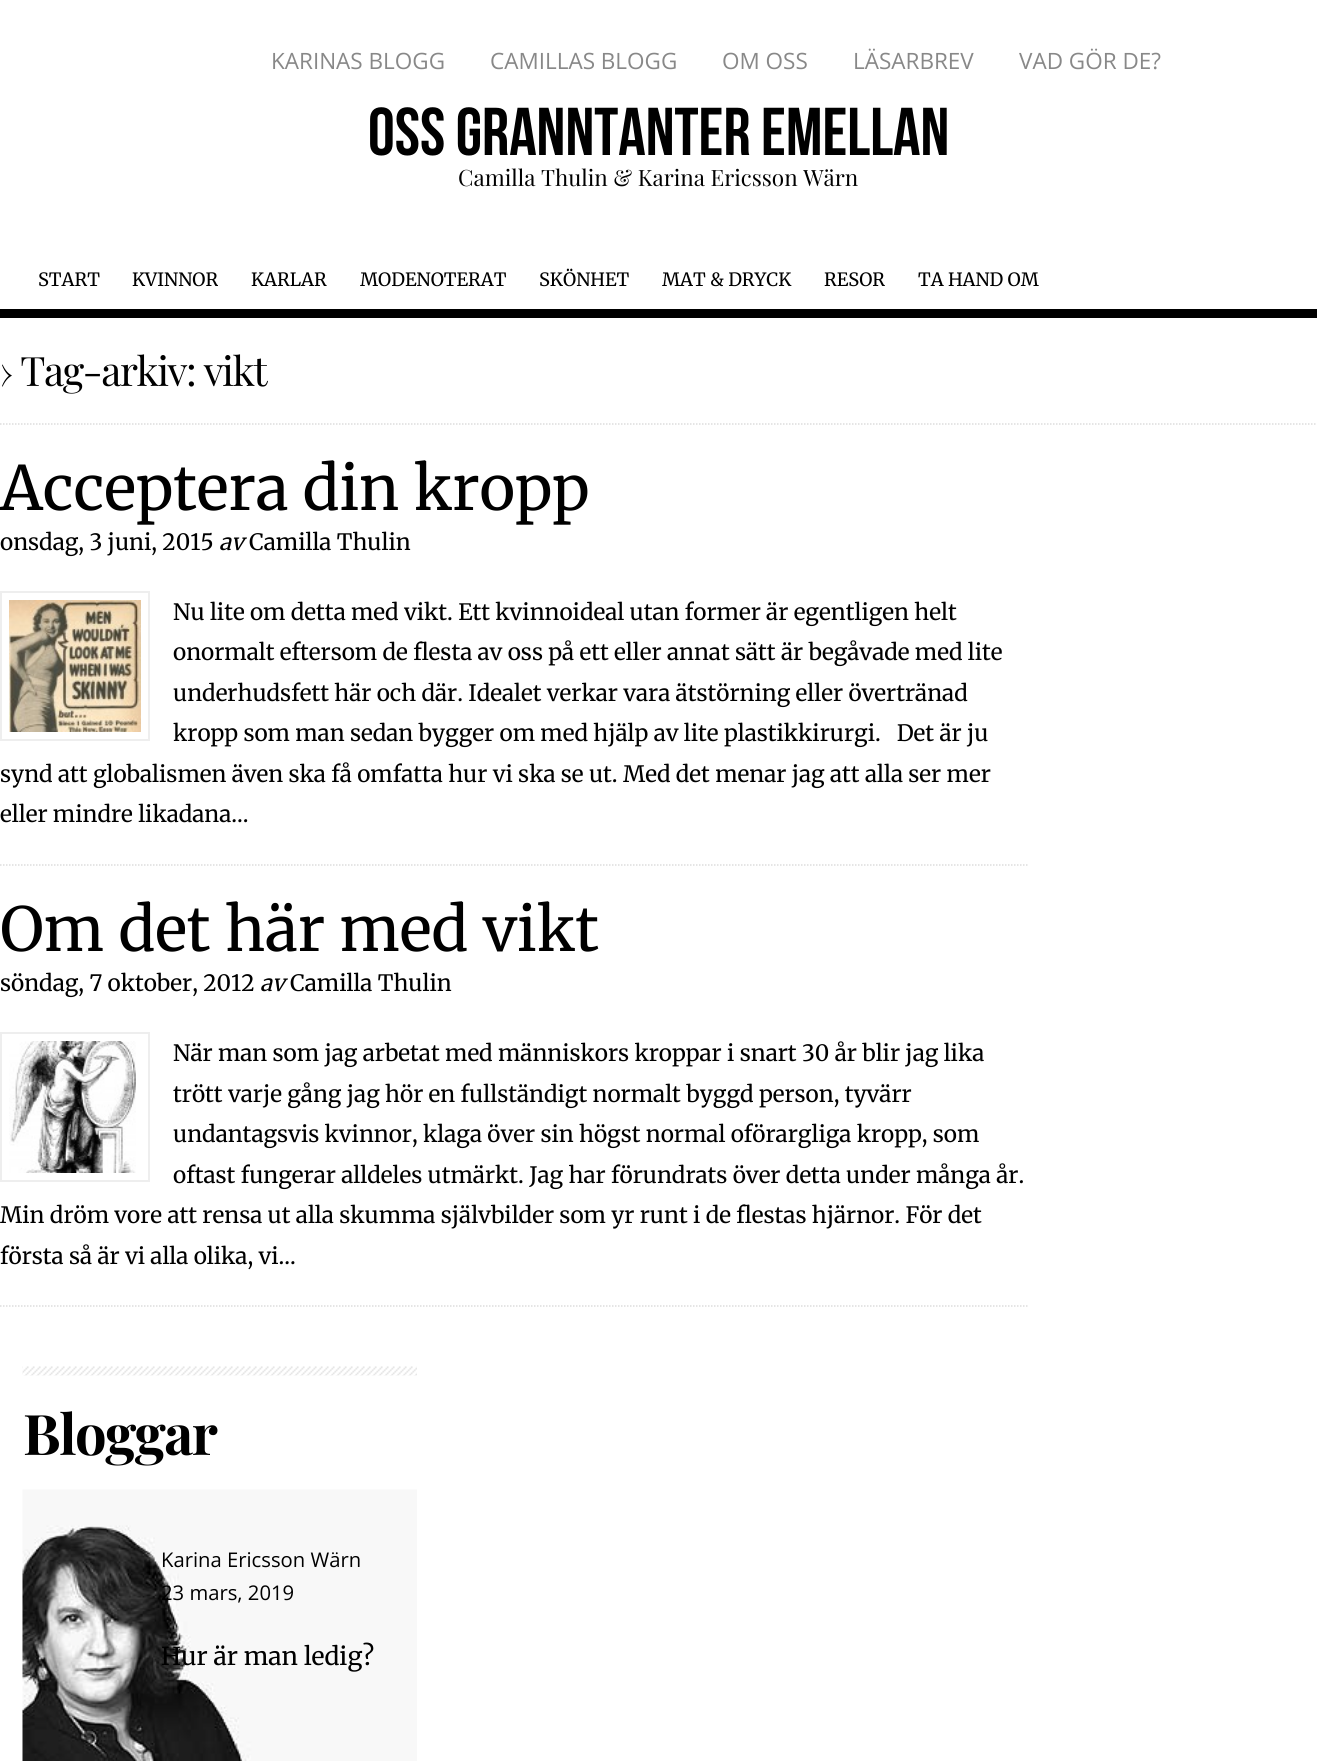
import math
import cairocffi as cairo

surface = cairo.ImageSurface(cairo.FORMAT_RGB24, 1317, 1761)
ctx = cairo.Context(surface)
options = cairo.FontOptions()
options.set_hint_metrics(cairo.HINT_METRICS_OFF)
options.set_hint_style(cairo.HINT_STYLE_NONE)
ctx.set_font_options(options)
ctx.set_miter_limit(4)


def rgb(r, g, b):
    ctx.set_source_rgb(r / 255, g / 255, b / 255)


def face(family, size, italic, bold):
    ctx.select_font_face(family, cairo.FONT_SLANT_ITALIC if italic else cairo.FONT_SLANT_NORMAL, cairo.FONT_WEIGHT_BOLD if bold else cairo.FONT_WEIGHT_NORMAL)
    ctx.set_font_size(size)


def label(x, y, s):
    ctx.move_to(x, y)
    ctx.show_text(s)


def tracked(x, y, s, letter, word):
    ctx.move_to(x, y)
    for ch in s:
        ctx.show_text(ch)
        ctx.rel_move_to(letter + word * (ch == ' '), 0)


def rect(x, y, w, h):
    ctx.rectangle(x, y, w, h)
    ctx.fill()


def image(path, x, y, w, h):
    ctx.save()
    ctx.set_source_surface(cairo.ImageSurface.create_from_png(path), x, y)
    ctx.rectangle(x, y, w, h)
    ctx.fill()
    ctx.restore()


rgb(255, 255, 255)
ctx.paint()
face('Open Sans', 22.5, 0, 0)
rgb(136, 136, 136)
label(271, 69, 'KARINAS BLOGG')
label(490, 69, 'CAMILLAS BLOGG')
label(722, 69, 'OM OSS')
label(853, 69, 'LÄSARBREV')
label(1019, 69, 'VAD GÖR DE?')
face('Bebas Neue', 67.5, 0, 0)
rgb(0, 0, 0)
label(368, 155, 'Oss granntanter emellan')
face('Playfair Display', 22.5, 0, 0)
label(458, 186, 'Camilla Thulin & Karina Ericsson Wärn')
face('Merriweather', 18.25, 0, 0)
label(38, 286, 'START')
label(132, 286, 'KVINNOR')
label(251, 286, 'KARLAR')
label(360, 286, 'MODENOTERAT')
label(539, 286, 'SKÖNHET')
label(662, 286, 'MAT & DRYCK')
label(824, 286, 'RESOR')
label(918, 286, 'TA HAND OM')
rect(0, 309, 1317, 9)
ctx.new_path()
ctx.move_to(0, 424)
ctx.line_to(1317, 424)
rgb(221, 221, 221)
ctx.set_line_width(1.5)
ctx.set_dash([1.5, 1.5])
ctx.stroke()
face('Playfair Display', 40.5, 0, 0)
rgb(0, 0, 0)
tracked(0, 386, '› Tag-arkiv: vikt', -1.5, 0)
ctx.new_path()
ctx.move_to(0, 865)
ctx.line_to(1027.5, 865)
rgb(221, 221, 221)
ctx.stroke()
face('Merriweather', 60.75, 0, 0)
rgb(0, 0, 0)
label(0, 510, 'Acceptera din kropp')
face('Merriweather', 22.5, 0, 0)
label(0, 550, 'onsdag, 3 juni, 2015')
face('Merriweather', 22.5, 1, 0)
label(219, 550, 'av')
face('Merriweather', 22.5, 0, 0)
label(249, 550, 'Camilla Thulin')
ctx.rectangle(1, 592, 148, 148)
rgb(238, 238, 238)
ctx.set_line_width(2)
ctx.set_dash([])
ctx.stroke()
image('image0.png', 9, 600, 132, 132)
rgb(0, 0, 0)
label(173, 620, 'Nu lite om detta med vikt. Ett kvinnoideal utan former är egentligen helt')
label(173, 660, 'onormalt eftersom de flesta av oss på ett eller annat sätt är begåvade med lite')
label(173, 701, 'underhudsfett här och där. Idealet verkar vara ätstörning eller övertränad')
label(173, 741, 'kropp som man sedan bygger om med hjälp av lite plastikkirurgi.   Det är ju')
label(0, 782, 'synd att globalismen även ska få omfatta hur vi ska se ut. Med det menar jag att alla ser mer')
label(0, 822, 'eller mindre likadana...')
ctx.new_path()
ctx.move_to(0, 1306)
ctx.line_to(1027.5, 1306)
rgb(221, 221, 221)
ctx.set_line_width(1.5)
ctx.set_dash([1.5, 1.5])
ctx.stroke()
face('Merriweather', 60.75, 0, 0)
rgb(0, 0, 0)
label(0, 951, 'Om det här med vikt')
face('Merriweather', 22.5, 0, 0)
label(0, 991, 'söndag, 7 oktober, 2012')
face('Merriweather', 22.5, 1, 0)
label(260, 991, 'av')
face('Merriweather', 22.5, 0, 0)
label(290, 991, 'Camilla Thulin')
ctx.rectangle(1, 1033, 148, 148)
rgb(238, 238, 238)
ctx.set_line_width(2)
ctx.set_dash([])
ctx.stroke()
image('image1.png', 9, 1041, 127, 132)
rgb(0, 0, 0)
label(173, 1061, 'När man som jag arbetat med människors kroppar i snart 30 år blir jag lika')
label(173, 1102, 'trött varje gång jag hör en fullständigt normalt byggd person, tyvärr')
label(173, 1142, 'undantagsvis kvinnor, klaga över sin högst normal oförargliga kropp, som')
label(173, 1183, 'oftast fungerar alldeles utmärkt. Jag har förundrats över detta under många år.')
label(0, 1223, 'Min dröm vore att rensa ut alla skumma självbilder som yr runt i de flestas hjärnor. För det')
label(0, 1264, 'första så är vi alla olika, vi...')
image('image2.png', 22, 1366, 395, 10)
face('Playfair Display', 56, 0, 1)
tracked(23, 1455, 'Bloggar', -1.5, 0)
image('image3.png', 22, 1489, 395, 272)
face('Open Sans', 20.25, 0, 0)
label(161, 1567, 'Karina Ericsson Wärn')
label(161, 1600, '23 mars, 2019')
face('Merriweather', 24.75, 0, 0)
label(161, 1665, 'Hur är man ledig?')
surface.write_to_png('render.png')
